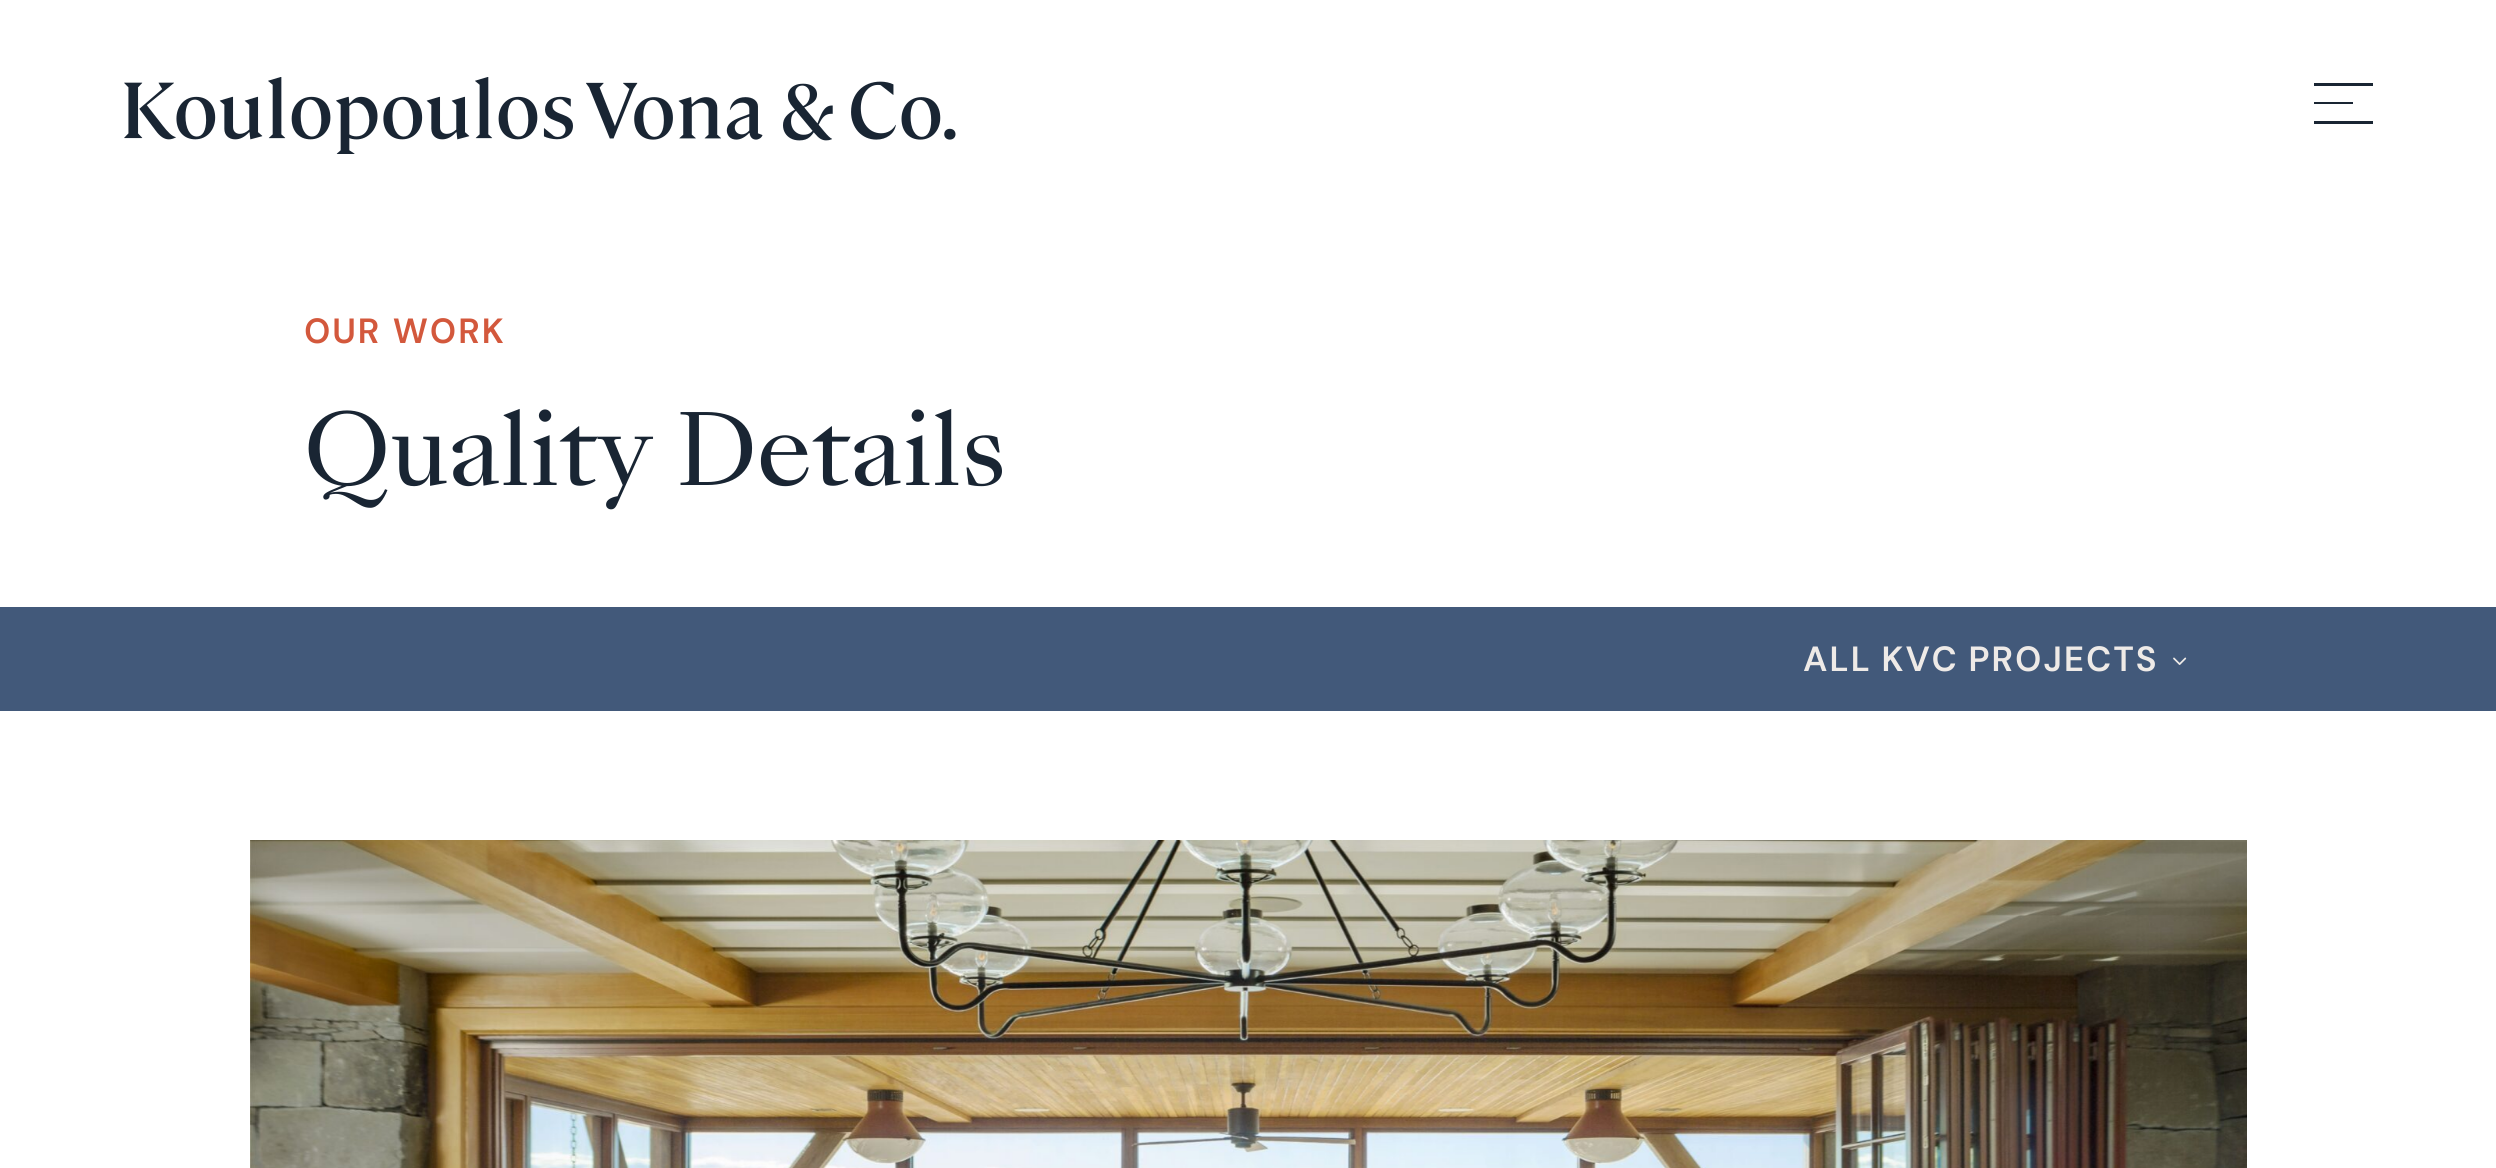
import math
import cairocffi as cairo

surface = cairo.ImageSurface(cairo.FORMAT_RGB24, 2496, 1168)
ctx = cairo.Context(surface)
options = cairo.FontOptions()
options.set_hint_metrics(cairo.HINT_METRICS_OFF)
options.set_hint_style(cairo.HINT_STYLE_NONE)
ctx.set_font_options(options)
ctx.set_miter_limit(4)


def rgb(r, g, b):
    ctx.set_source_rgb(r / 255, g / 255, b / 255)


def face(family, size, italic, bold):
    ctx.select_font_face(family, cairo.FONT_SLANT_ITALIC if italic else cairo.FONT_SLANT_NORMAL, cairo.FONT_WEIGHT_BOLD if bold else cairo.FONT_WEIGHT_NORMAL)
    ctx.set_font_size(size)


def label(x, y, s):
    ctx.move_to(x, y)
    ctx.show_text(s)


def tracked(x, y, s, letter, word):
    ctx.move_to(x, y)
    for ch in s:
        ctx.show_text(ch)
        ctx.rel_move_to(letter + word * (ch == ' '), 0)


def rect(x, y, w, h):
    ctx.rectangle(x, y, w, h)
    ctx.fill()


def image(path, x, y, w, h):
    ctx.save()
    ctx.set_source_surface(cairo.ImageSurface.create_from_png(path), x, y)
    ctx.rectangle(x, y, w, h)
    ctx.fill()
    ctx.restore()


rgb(255, 255, 255)
ctx.paint()
image('image0.png', 124, 77, 832, 77)
rgb(25, 37, 51)
rect(2314, 83, 59, 3)
rect(2314, 102, 39, 2)
rect(2314, 121, 59, 3)
face('DM Sans SemiBold', 35, 0, 0)
rgb(211, 88, 60)
tracked(304, 343, 'OUR WORK', 1.75, 1)
face('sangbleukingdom', 96.25, 0, 0)
rgb(25, 37, 51)
label(304, 485, 'Quality Details')
rgb(66, 89, 122)
rect(0, 607, 2496, 104)
face('DM Sans SemiBold', 35, 0, 0)
rgb(238, 234, 231)
tracked(1803, 671, 'ALL KVC PROJECTS', 1.75, -1)
image('image1.png', 2173, 657, 14, 8)
image('image2.png', 250, 840, 1997, 328)
surface.write_to_png('render.png')
